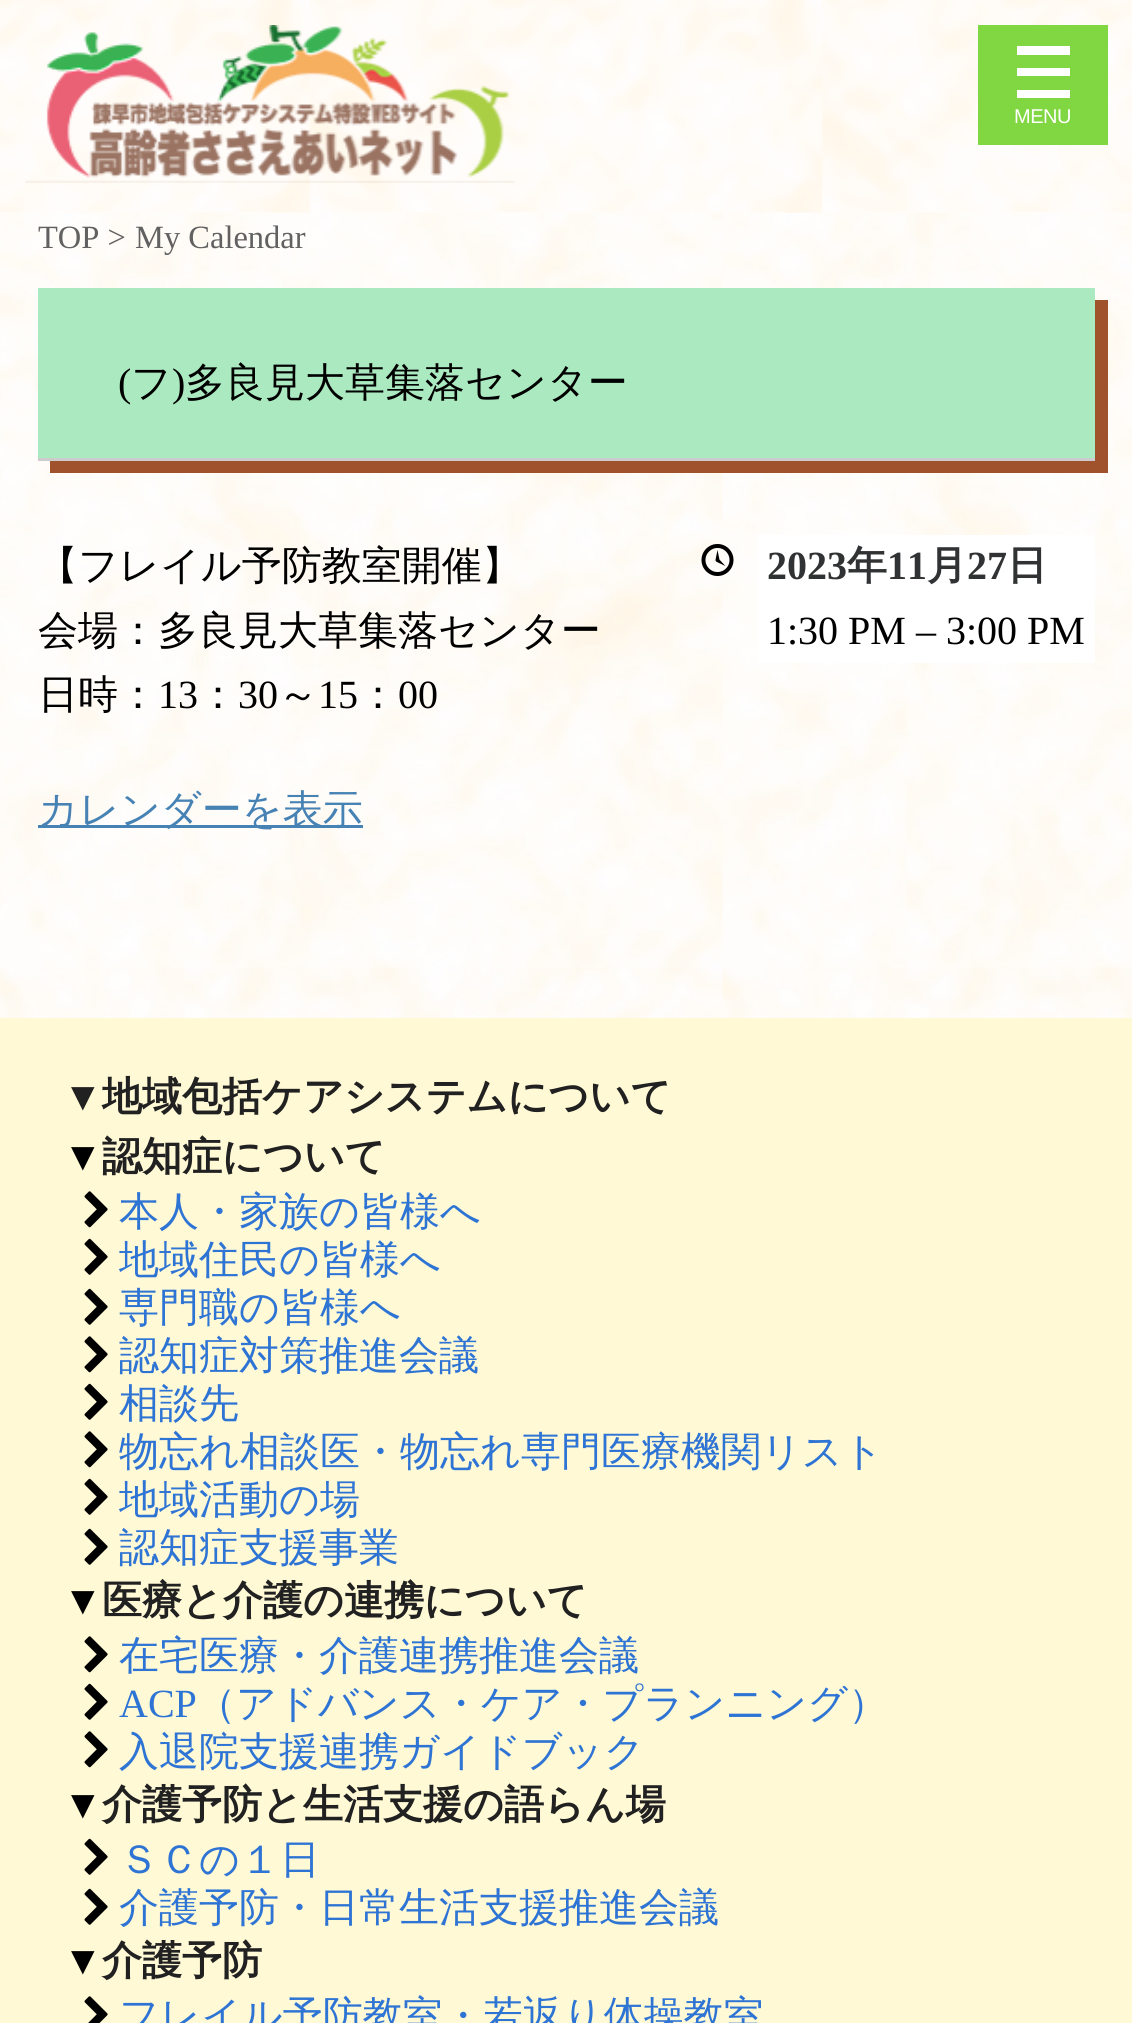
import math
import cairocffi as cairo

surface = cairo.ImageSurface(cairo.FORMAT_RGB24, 1132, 2023)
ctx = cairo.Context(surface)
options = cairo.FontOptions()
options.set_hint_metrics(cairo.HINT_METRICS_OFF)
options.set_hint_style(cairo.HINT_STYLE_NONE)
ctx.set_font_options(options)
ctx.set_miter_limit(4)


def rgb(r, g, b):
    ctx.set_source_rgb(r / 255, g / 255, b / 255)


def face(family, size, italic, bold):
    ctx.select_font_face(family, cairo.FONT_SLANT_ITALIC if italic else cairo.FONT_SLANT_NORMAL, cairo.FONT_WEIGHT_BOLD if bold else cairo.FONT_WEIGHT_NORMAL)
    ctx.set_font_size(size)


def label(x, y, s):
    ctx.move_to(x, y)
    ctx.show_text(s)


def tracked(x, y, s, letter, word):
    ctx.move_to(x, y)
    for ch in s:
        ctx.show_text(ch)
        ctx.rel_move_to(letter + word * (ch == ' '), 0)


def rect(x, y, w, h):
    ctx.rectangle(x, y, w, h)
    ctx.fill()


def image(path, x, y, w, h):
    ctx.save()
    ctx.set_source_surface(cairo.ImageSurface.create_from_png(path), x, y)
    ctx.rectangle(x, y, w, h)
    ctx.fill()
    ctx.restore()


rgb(255, 255, 255)
ctx.paint()
image('image0.png', 0, 212, 1132, 806)
image('image1.png', 0, 212, 1132, 1)
image('image2.png', 0, 0, 1132, 213)
image('image3.png', 25, 25, 490, 158)
rgb(129, 215, 66)
rect(978, 25, 130, 120)
rgb(255, 255, 255)
ctx.new_path()
ctx.move_to(1017, 46)
ctx.line_to(1070, 46)
ctx.line_to(1070, 55)
ctx.line_to(1017, 55)
ctx.close_path()
ctx.move_to(1017, 90)
ctx.line_to(1070, 90)
ctx.line_to(1070, 98)
ctx.line_to(1017, 98)
ctx.close_path()
ctx.move_to(1017, 68)
ctx.line_to(1070, 68)
ctx.line_to(1070, 76)
ctx.line_to(1017, 76)
ctx.close_path()
ctx.fill()
face('Liberation Sans', 20, 0, 0)
tracked(1014, 123, 'MENU', -0.5, 0)
ctx.set_source_rgba(1, 1, 1, 0.2)
rect(0, 213, 1132, 755)
face('Liberation Serif', 32.5, 0, 0)
rgb(97, 97, 97)
label(38, 248, 'TOP >')
label(135, 248, 'My Calendar')
rgb(160, 82, 44)
ctx.new_path()
ctx.move_to(50, 460)
ctx.line_to(50, 473)
ctx.line_to(1108, 473)
ctx.line_to(1108, 300)
ctx.line_to(1095, 300)
ctx.line_to(1095, 460)
ctx.close_path()
ctx.fill()
rgb(171, 234, 192)
rect(38, 288, 1057, 170)
rgb(204, 204, 204)
rect(38, 458, 1057, 3)
face('Liberation Serif', 40, 0, 0)
rgb(0, 0, 0)
label(118, 396, '(')
face('WenQuanYi Zen Hei Medium', 40, 0, 0)
label(131, 396, 'フ')
face('Liberation Serif', 40, 0, 0)
label(172, 396, ')')
face('WenQuanYi Zen Hei Medium', 40, 0, 0)
label(185, 396, '多良見大草集落センター')
label(38, 579, '【フレイル予防教室開催】')
label(38, 644, '会場：多良見大草集落センター')
label(38, 708, '日時：')
face('Liberation Serif', 40, 0, 0)
label(158, 708, '13')
face('WenQuanYi Zen Hei Medium', 40, 0, 0)
label(198, 708, '：')
face('Liberation Serif', 40, 0, 0)
label(238, 708, '30')
face('WenQuanYi Zen Hei Medium', 40, 0, 0)
label(278, 708, '～')
face('Liberation Serif', 40, 0, 0)
label(318, 708, '15')
face('WenQuanYi Zen Hei Medium', 40, 0, 0)
label(358, 708, '：')
face('Liberation Serif', 40, 0, 0)
label(398, 708, '00')
image('image4.png', 701, 544, 33, 32)
rgb(255, 255, 255)
rect(758, 535, 337, 128)
face('Liberation Serif', 40, 0, 1)
rgb(49, 50, 51)
label(767, 579, '2023')
face('WenQuanYi Zen Hei', 40, 0, 1)
label(847, 579, '年')
face('Liberation Serif', 40, 0, 1)
label(887, 579, '11')
face('WenQuanYi Zen Hei', 40, 0, 1)
label(927, 579, '月')
face('Liberation Serif', 40, 0, 1)
label(967, 579, '27')
face('WenQuanYi Zen Hei', 40, 0, 1)
label(1007, 579, '日')
face('Liberation Serif', 40, 0, 0)
rgb(0, 0, 0)
label(767, 644, '1:30 PM – 3:00 PM')
rgb(70, 130, 180)
rect(38, 825, 325, 3)
face('WenQuanYi Zen Hei Medium', 40, 0, 0)
label(38, 823, 'カレンダーを表示')
rgb(255, 249, 213)
rect(0, 1018, 1132, 1005)
face('Liberation Serif', 40, 0, 1)
rgb(33, 33, 33)
label(63, 1110, '▼')
face('WenQuanYi Zen Hei', 40, 0, 1)
label(102, 1110, '地域包括ケアシステムについて')
face('Liberation Serif', 40, 0, 1)
rgb(0, 0, 0)
label(63, 1170, '▼')
face('WenQuanYi Zen Hei', 40, 0, 1)
rgb(33, 33, 33)
label(102, 1170, '認知症について')
image('image5.png', 84, 1191, 24, 37)
face('WenQuanYi Zen Hei Medium', 40, 0, 0)
rgb(46, 116, 212)
label(119, 1225, '本人・家族の皆様へ')
image('image6.png', 84, 1238, 24, 37)
label(119, 1273, '地域住民の皆様へ')
image('image6.png', 84, 1288, 24, 37)
label(119, 1321, '専門職の皆様へ')
image('image5.png', 84, 1336, 24, 37)
label(119, 1369, '認知症対策推進会議')
image('image6.png', 84, 1383, 24, 37)
label(119, 1417, '相談先')
image('image5.png', 84, 1431, 24, 37)
label(119, 1465, '物忘れ相談医・物忘れ専門医療機関リスト')
image('image6.png', 84, 1478, 24, 37)
label(119, 1513, '地域活動の場')
image('image6.png', 84, 1528, 24, 37)
label(119, 1561, '認知症支援事業')
face('Liberation Serif', 40, 0, 1)
rgb(0, 0, 0)
label(63, 1614, '▼')
face('WenQuanYi Zen Hei', 40, 0, 1)
rgb(33, 33, 33)
label(102, 1614, '医療と介護の連携について')
image('image5.png', 84, 1636, 24, 37)
face('WenQuanYi Zen Hei Medium', 40, 0, 0)
rgb(46, 116, 212)
label(119, 1669, '在宅医療・介護連携推進会議')
image('image6.png', 84, 1683, 24, 37)
face('Liberation Serif', 40, 0, 0)
label(119, 1717, 'ACP')
face('WenQuanYi Zen Hei Medium', 40, 0, 0)
label(196, 1717, '（アドバンス・ケア・プランニング）')
image('image5.png', 84, 1731, 24, 37)
label(119, 1765, '入退院支援連携ガイドブック')
face('Liberation Serif', 40, 0, 1)
rgb(0, 0, 0)
label(63, 1818, '▼')
face('WenQuanYi Zen Hei', 40, 0, 1)
rgb(33, 33, 33)
label(102, 1818, '介護予防と生活支援の語らん場')
image('image6.png', 84, 1838, 24, 37)
face('WenQuanYi Zen Hei Medium', 40, 0, 0)
rgb(46, 116, 212)
label(119, 1873, 'ＳＣの１日')
image('image6.png', 84, 1888, 24, 37)
label(119, 1921, '介護予防・日常生活支援推進会議')
face('Liberation Serif', 40, 0, 1)
rgb(0, 0, 0)
label(63, 1974, '▼')
face('WenQuanYi Zen Hei', 40, 0, 1)
rgb(33, 33, 33)
label(102, 1974, '介護予防')
image('image7.png', 84, 1996, 24, 27)
face('WenQuanYi Zen Hei Medium', 40, 0, 0)
rgb(46, 116, 212)
label(119, 2029, 'フレイル予防教室・若返り体操教室')
surface.write_to_png('render.png')
